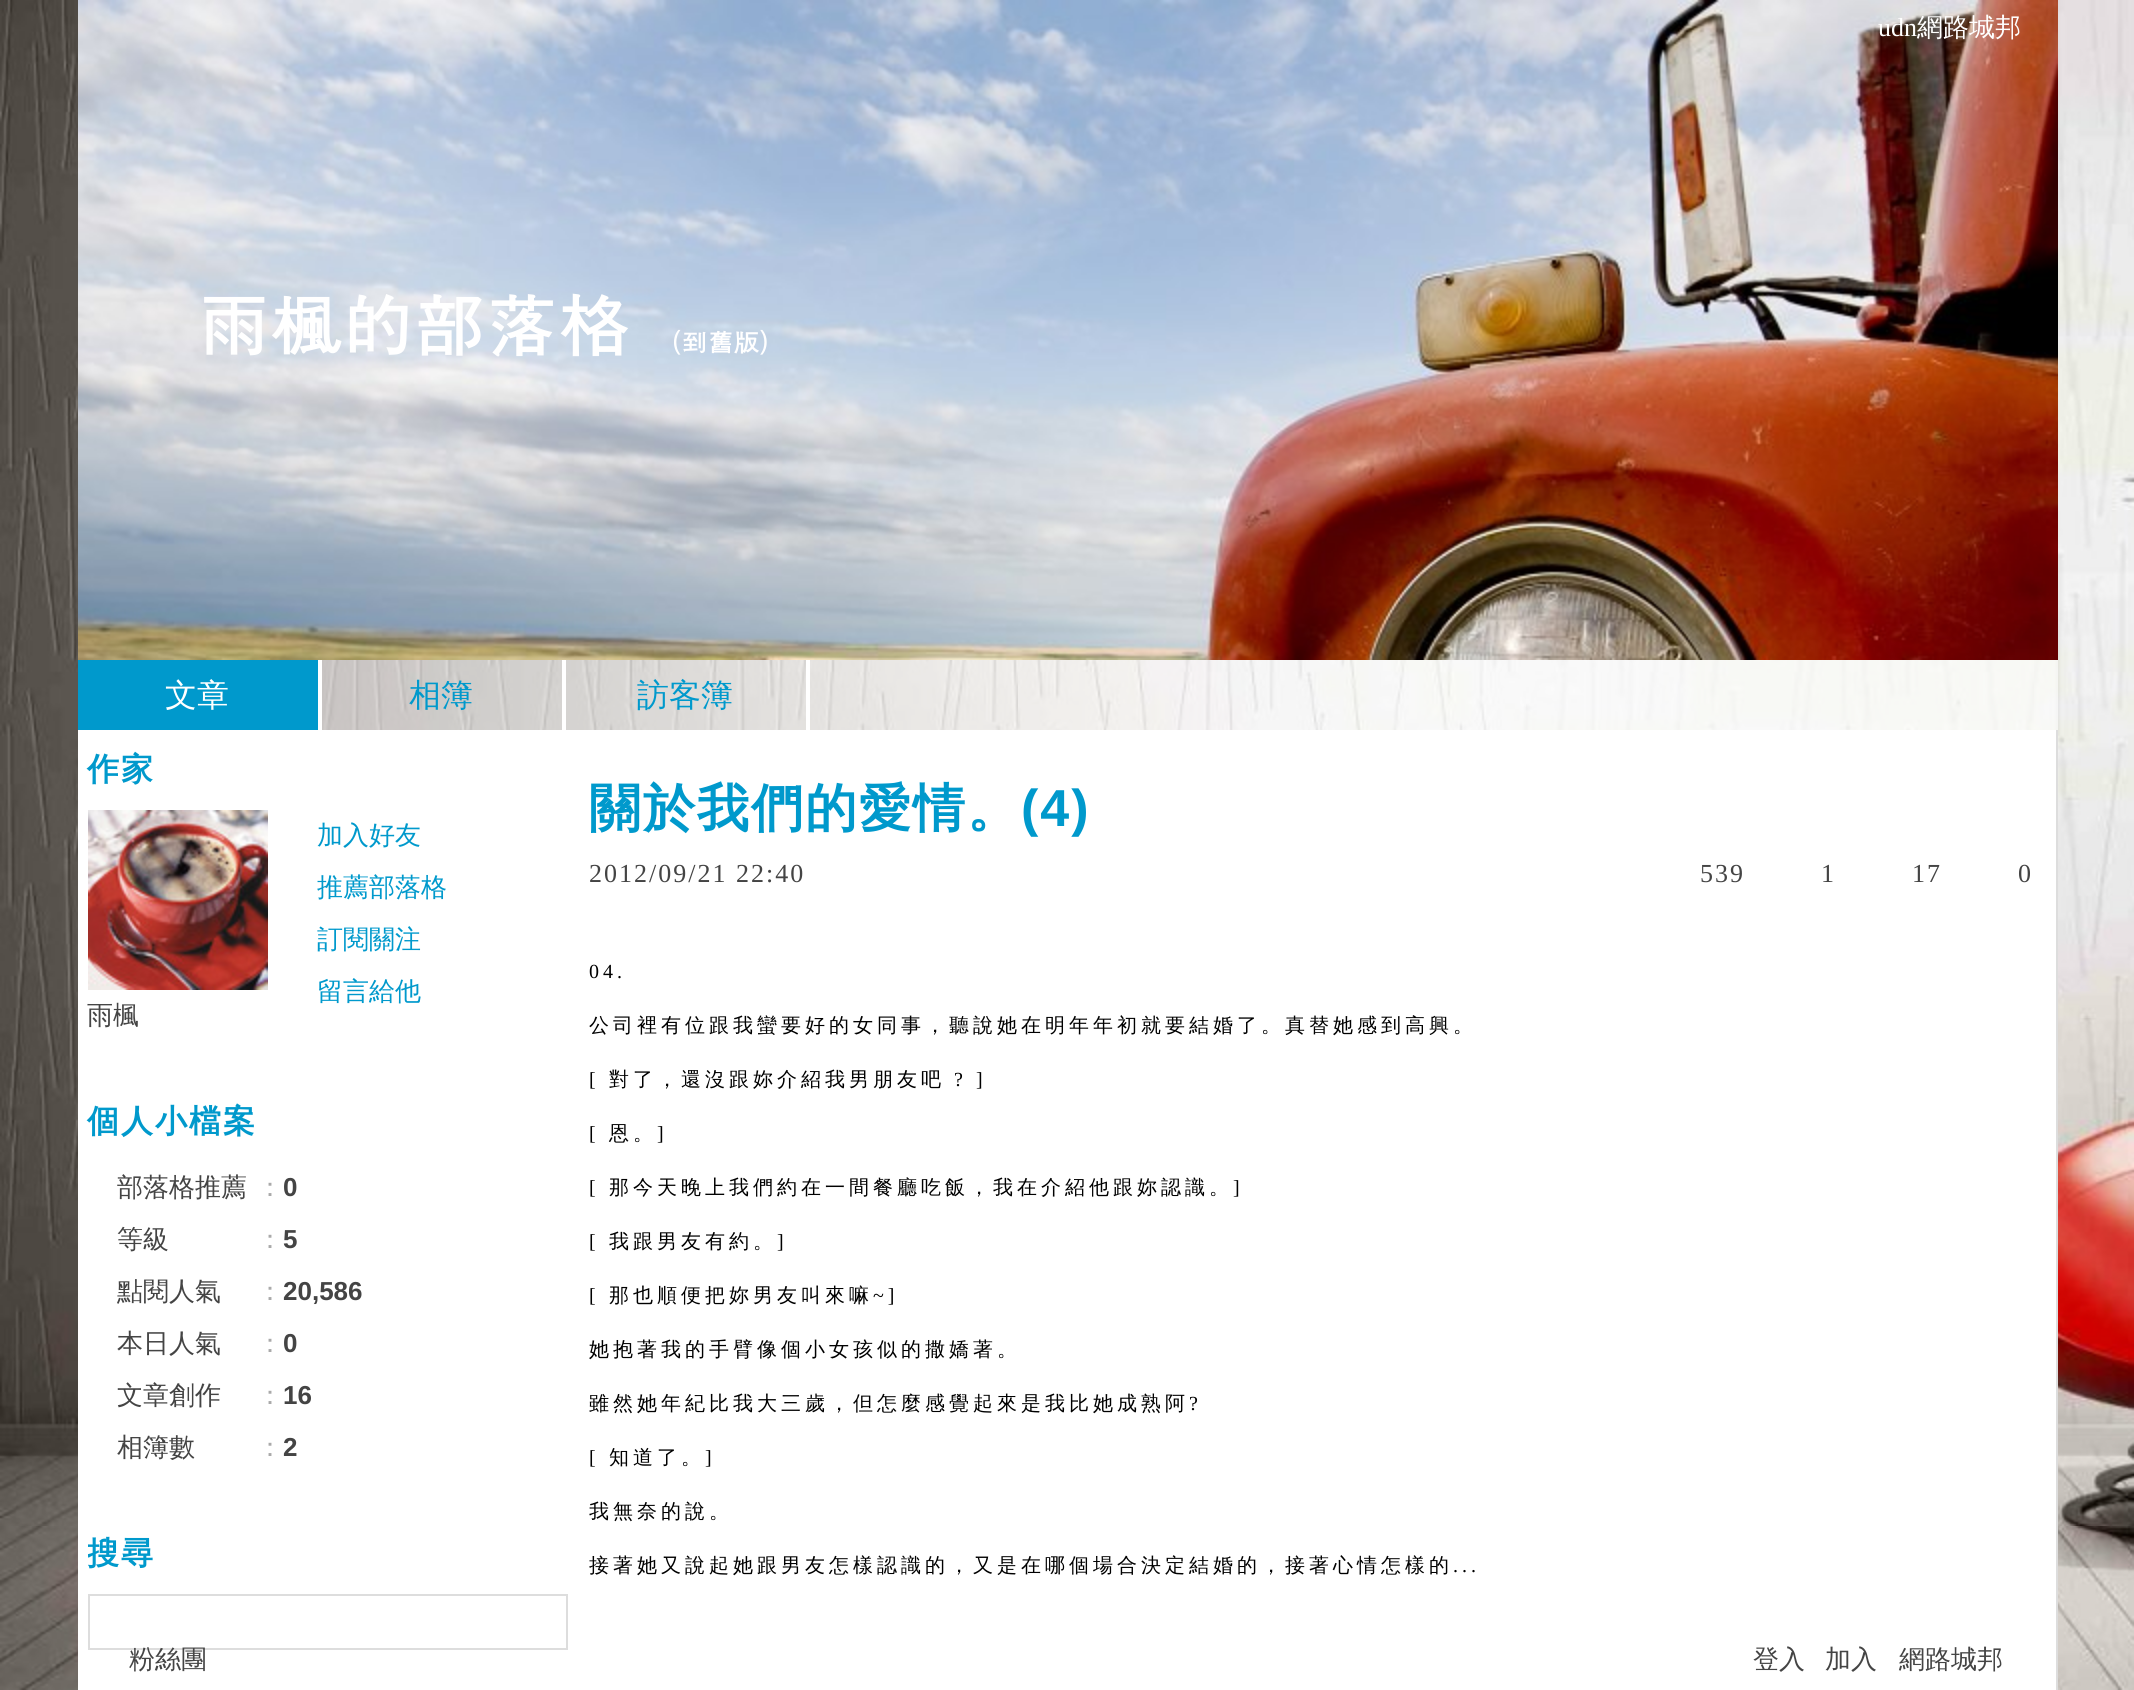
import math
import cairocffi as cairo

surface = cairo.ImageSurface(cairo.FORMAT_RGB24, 2134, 1690)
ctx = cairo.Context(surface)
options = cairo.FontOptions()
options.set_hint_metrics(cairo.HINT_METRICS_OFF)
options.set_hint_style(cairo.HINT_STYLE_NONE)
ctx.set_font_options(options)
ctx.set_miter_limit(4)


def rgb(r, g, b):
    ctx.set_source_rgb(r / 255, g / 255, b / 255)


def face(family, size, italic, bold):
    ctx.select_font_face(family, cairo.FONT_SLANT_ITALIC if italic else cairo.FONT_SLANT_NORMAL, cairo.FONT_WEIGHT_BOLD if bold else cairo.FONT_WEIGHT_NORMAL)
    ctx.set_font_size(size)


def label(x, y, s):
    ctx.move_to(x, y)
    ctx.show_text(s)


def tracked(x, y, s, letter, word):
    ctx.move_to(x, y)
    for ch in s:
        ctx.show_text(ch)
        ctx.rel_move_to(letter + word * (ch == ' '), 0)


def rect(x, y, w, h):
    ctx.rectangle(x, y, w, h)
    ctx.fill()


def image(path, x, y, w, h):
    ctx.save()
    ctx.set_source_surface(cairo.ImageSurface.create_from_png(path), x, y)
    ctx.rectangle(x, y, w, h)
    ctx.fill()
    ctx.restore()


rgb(255, 255, 255)
ctx.paint()
image('image0.png', 0, 0, 2134, 1690)
image('image1.png', 78, 0, 1980, 660)
face('Liberation Serif', 26, 0, 0)
rgb(255, 255, 255)
label(1878, 36, 'udn')
face('WenQuanYi Zen Hei Medium', 26, 0, 0)
label(1917, 36, '網路城邦')
face('Dotum', 72, 0, 1)
label(197, 352, '雨楓的部落格')
face('Dotum', 26, 0, 1)
label(655, 352, '（到舊版）')
ctx.set_source_rgba(1, 1, 1, 0.6)
rect(322, 660, 1736, 70)
rgb(255, 255, 255)
rect(318, 660, 4, 70)
rgb(0, 153, 204)
rect(78, 660, 240, 70)
face('WenQuanYi Zen Hei Medium', 32, 0, 0)
rgb(255, 255, 255)
label(165, 706, '文章')
rect(562, 660, 4, 70)
rgb(0, 153, 204)
label(409, 706, '相簿')
rgb(255, 255, 255)
rect(806, 660, 4, 70)
rgb(0, 153, 204)
label(637, 706, '訪客簿')
rgb(255, 255, 255)
rect(78, 730, 1978, 960)
face('WenQuanYi Zen Hei', 32, 0, 1)
rgb(0, 153, 204)
tracked(87, 780, '作家', 2, 0)
face('WenQuanYi Zen Hei Medium', 26, 0, 0)
label(317, 844, '加入好友')
label(317, 896, '推薦部落格')
label(317, 948, '訂閱關注')
label(317, 1000, '留言給他')
image('image2.png', 88, 810, 180, 180)
rgb(68, 68, 68)
label(87, 1024, '雨楓')
face('WenQuanYi Zen Hei', 32, 0, 1)
rgb(0, 153, 204)
tracked(87, 1132, '個人小檔案', 2, 0)
face('WenQuanYi Zen Hei Medium', 26, 0, 0)
rgb(68, 68, 68)
label(117, 1196, '部落格推薦')
rgb(170, 170, 170)
label(257, 1196, '：')
face('Liberation Sans', 26, 0, 1)
rgb(68, 68, 68)
label(283, 1196, '0')
face('WenQuanYi Zen Hei Medium', 26, 0, 0)
label(117, 1248, '等級')
rgb(170, 170, 170)
label(257, 1248, '：')
face('Liberation Sans', 26, 0, 1)
rgb(68, 68, 68)
label(283, 1248, '5')
face('WenQuanYi Zen Hei Medium', 26, 0, 0)
label(117, 1300, '點閱人氣')
rgb(170, 170, 170)
label(257, 1300, '：')
face('Liberation Sans', 26, 0, 1)
rgb(68, 68, 68)
label(283, 1300, '20,586')
face('WenQuanYi Zen Hei Medium', 26, 0, 0)
label(117, 1352, '本日人氣')
rgb(170, 170, 170)
label(257, 1352, '：')
face('Liberation Sans', 26, 0, 1)
rgb(68, 68, 68)
label(283, 1352, '0')
face('WenQuanYi Zen Hei Medium', 26, 0, 0)
label(117, 1404, '文章創作')
rgb(170, 170, 170)
label(257, 1404, '：')
face('Liberation Sans', 26, 0, 1)
rgb(68, 68, 68)
label(283, 1404, '16')
face('WenQuanYi Zen Hei Medium', 26, 0, 0)
label(117, 1456, '相簿數')
rgb(170, 170, 170)
label(257, 1456, '：')
face('Liberation Sans', 26, 0, 1)
rgb(68, 68, 68)
label(283, 1456, '2')
ctx.save()
ctx.rectangle(88, 1514, 480, 80)
ctx.clip()
face('WenQuanYi Zen Hei', 32, 0, 1)
rgb(0, 153, 204)
tracked(87, 1564, '搜尋', 2, 0)
ctx.restore()
rgb(221, 221, 221)
rect(88, 1594, 480, 2)
rect(88, 1648, 410, 2)
rect(88, 1594, 2, 56)
rect(566, 1594, 2, 56)
rect(498, 1648, 70, 2)
rect(2056, 730, 2, 960)
face('WenQuanYi Zen Hei', 52, 0, 1)
rgb(0, 153, 204)
tracked(589, 826, '關於我們的愛情。', 2, 0)
face('Liberation Sans', 52, 0, 1)
tracked(1021, 826, '(4)', 2, 0)
face('Liberation Serif', 26, 0, 0)
rgb(68, 68, 68)
tracked(589, 882, '2012/09/21 22:40', 2, 0)
tracked(1700, 882, '539', 2, 0)
tracked(1821, 882, '1', 2, 0)
tracked(1912, 882, '17', 2, 0)
tracked(2018, 882, '0', 2, 0)
face('Liberation Serif', 20, 0, 0)
rgb(0, 0, 0)
tracked(589, 978, '04.', 4, 0)
face('WenQuanYi Zen Hei Medium', 20, 0, 0)
tracked(589, 1032, '公司裡有位跟我蠻要好的女同事，聽說她在明年年初就要結婚了。真替她感到高興。', 4, 0)
face('Liberation Serif', 20, 0, 0)
tracked(589, 1086, '[', 4, 0)
face('WenQuanYi Zen Hei Medium', 20, 0, 0)
tracked(609, 1086, '對了，還沒跟妳介紹我男朋友吧', 4, 0)
face('Liberation Serif', 20, 0, 0)
tracked(954, 1086, '? ]', 4, 0)
tracked(589, 1140, '[', 4, 0)
face('WenQuanYi Zen Hei Medium', 20, 0, 0)
tracked(609, 1140, '恩。', 4, 0)
face('Liberation Serif', 20, 0, 0)
tracked(657, 1140, ']', 4, 0)
tracked(589, 1194, '[', 4, 0)
face('WenQuanYi Zen Hei Medium', 20, 0, 0)
tracked(609, 1194, '那今天晚上我們約在一間餐廳吃飯，我在介紹他跟妳認識。', 4, 0)
face('Liberation Serif', 20, 0, 0)
tracked(1233, 1194, ']', 4, 0)
tracked(589, 1248, '[', 4, 0)
face('WenQuanYi Zen Hei Medium', 20, 0, 0)
tracked(609, 1248, '我跟男友有約。', 4, 0)
face('Liberation Serif', 20, 0, 0)
tracked(777, 1248, ']', 4, 0)
tracked(589, 1302, '[', 4, 0)
face('WenQuanYi Zen Hei Medium', 20, 0, 0)
tracked(609, 1302, '那也順便把妳男友叫來嘛', 4, 0)
face('Liberation Serif', 20, 0, 0)
tracked(873, 1302, '~]', 4, 0)
face('WenQuanYi Zen Hei Medium', 20, 0, 0)
tracked(589, 1356, '她抱著我的手臂像個小女孩似的撒嬌著。', 4, 0)
tracked(589, 1410, '雖然她年紀比我大三歲，但怎麼感覺起來是我比她成熟阿', 4, 0)
face('Liberation Serif', 20, 0, 0)
tracked(1189, 1410, '?', 4, 0)
tracked(589, 1464, '[', 4, 0)
face('WenQuanYi Zen Hei Medium', 20, 0, 0)
tracked(609, 1464, '知道了。', 4, 0)
face('Liberation Serif', 20, 0, 0)
tracked(705, 1464, ']', 4, 0)
face('WenQuanYi Zen Hei Medium', 20, 0, 0)
tracked(589, 1518, '我無奈的說。', 4, 0)
tracked(589, 1572, '接著她又說起她跟男友怎樣認識的，又是在哪個場合決定結婚的，接著心情怎樣的', 4, 0)
face('Liberation Serif', 20, 0, 0)
tracked(1453, 1572, '...', 4, 0)
face('WenQuanYi Zen Hei Medium', 26, 0, 0)
rgb(68, 68, 68)
label(129, 1668, '粉絲團')
label(1753, 1668, '登入')
label(1825, 1668, '加入')
label(1899, 1668, '網路城邦')
surface.write_to_png('render.png')
